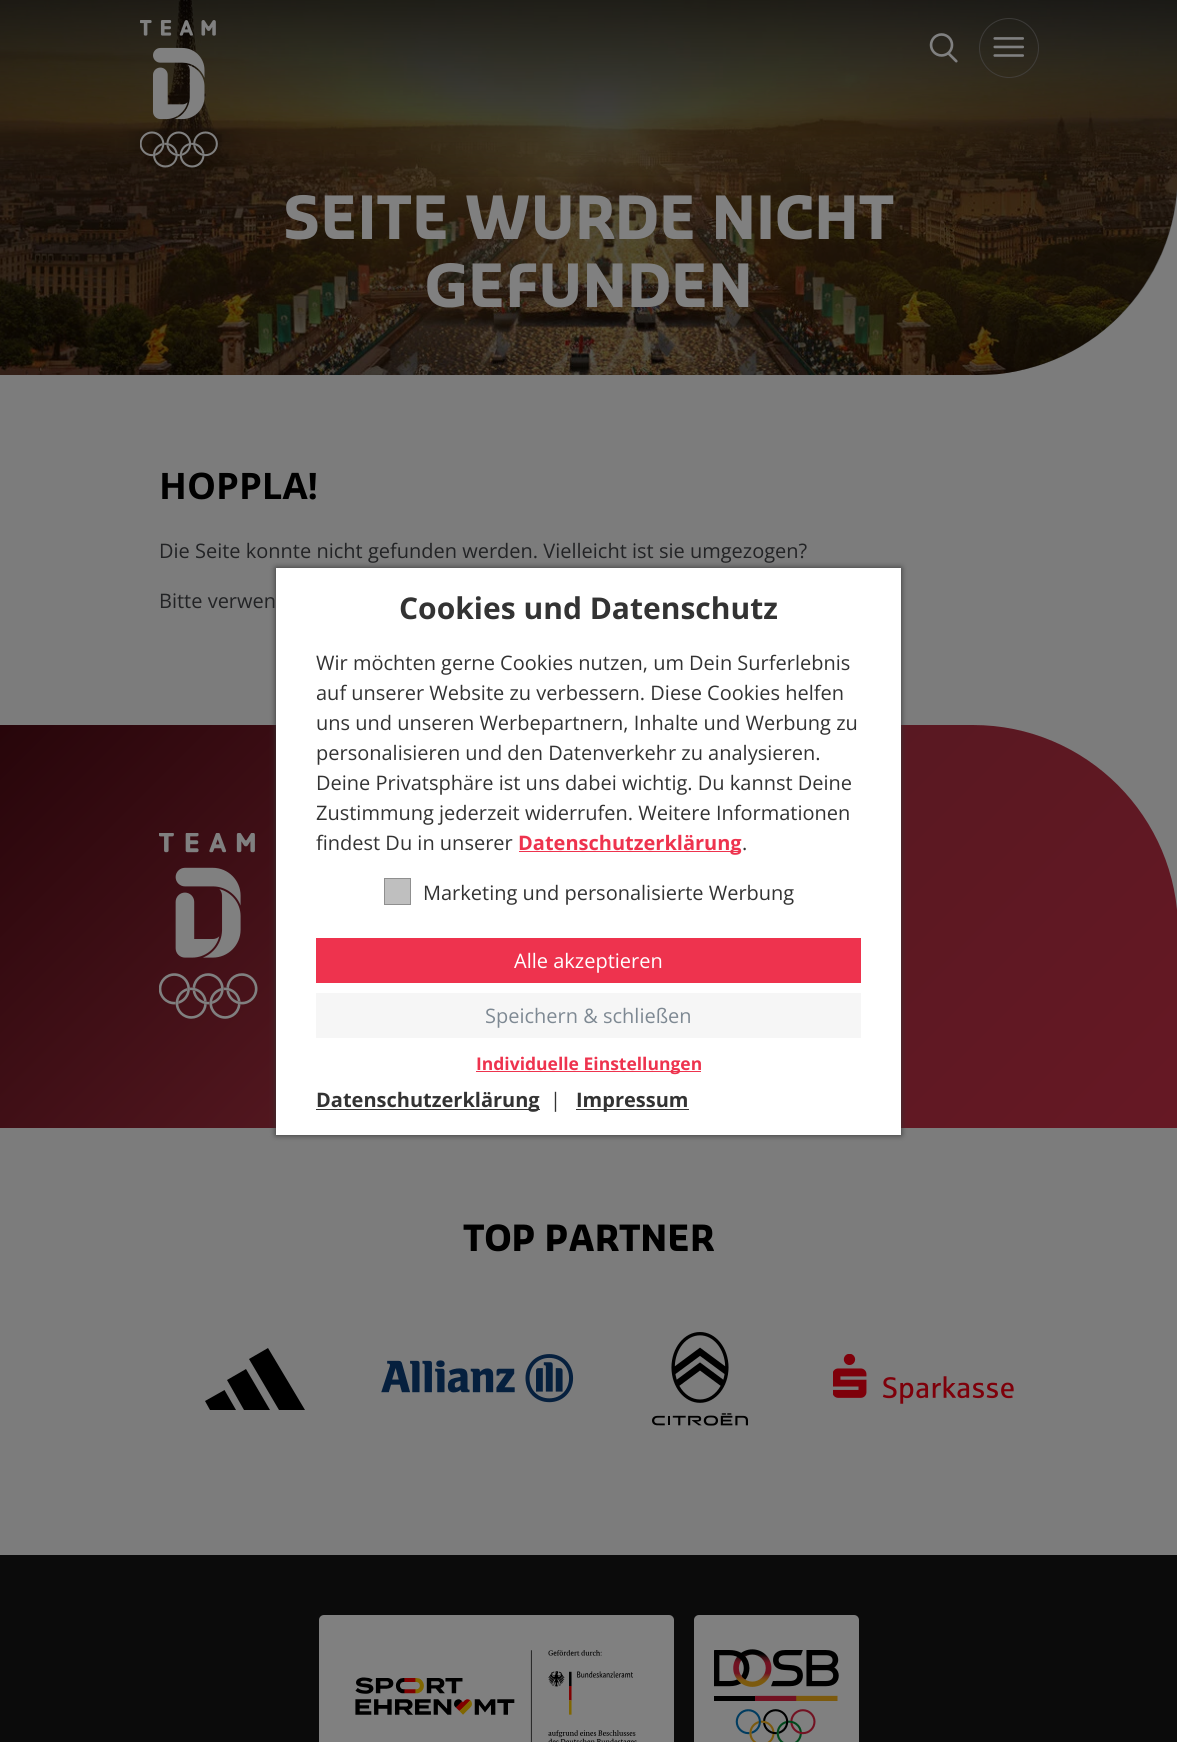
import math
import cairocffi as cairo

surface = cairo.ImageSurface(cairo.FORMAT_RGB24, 1177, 1742)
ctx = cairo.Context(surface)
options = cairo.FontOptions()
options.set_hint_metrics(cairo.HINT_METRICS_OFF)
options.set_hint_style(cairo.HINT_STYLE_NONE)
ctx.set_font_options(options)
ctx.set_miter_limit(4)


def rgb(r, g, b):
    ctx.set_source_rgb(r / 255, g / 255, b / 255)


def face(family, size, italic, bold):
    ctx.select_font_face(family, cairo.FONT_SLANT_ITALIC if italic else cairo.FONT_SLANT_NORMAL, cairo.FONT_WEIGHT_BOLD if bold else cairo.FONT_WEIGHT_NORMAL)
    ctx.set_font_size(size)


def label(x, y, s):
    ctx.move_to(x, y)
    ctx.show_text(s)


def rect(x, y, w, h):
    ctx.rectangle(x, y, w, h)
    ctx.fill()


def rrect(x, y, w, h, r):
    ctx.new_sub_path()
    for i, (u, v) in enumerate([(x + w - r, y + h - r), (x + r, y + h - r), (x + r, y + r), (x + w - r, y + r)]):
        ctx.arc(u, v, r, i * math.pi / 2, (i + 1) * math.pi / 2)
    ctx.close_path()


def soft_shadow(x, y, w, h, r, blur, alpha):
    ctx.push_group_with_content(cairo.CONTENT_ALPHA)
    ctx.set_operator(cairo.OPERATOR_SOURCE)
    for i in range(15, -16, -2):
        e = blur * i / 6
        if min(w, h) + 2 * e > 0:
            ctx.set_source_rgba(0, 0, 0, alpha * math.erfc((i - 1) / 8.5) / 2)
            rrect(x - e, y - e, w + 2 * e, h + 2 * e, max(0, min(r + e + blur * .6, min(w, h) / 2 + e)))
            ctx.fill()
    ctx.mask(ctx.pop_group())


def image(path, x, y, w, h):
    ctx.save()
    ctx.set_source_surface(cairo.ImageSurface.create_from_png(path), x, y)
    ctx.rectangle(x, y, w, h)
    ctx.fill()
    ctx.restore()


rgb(124, 124, 124)
ctx.paint()
image('image3.png', 0, 0, 1177, 375)
ctx.set_source_rgba(0, 0, 0, 0.33)
ctx.new_path()
ctx.move_to(0, 0)
ctx.line_to(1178, 0)
ctx.line_to(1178, 175)
ctx.curve_to(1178, 285.5, 1088.5, 375, 978, 375)
ctx.line_to(0, 375)
ctx.close_path()
ctx.fill()
gradient = cairo.LinearGradient(589, 0, 589, 188)
gradient.add_color_stop_rgba(0, 0, 0, 0, 0.64)
gradient.add_color_stop_rgba(1, 0, 0, 0, 0)
ctx.set_source(gradient)
rect(0, 0, 1177, 177)
image('image0.png', 140, 20, 78, 148)
image('image1.png', 929, 33, 29, 30)
ctx.arc(1009, 48, 29.5, 0, 2 * math.pi)
ctx.set_source_rgba(0.298, 0.29, 0.29, 0.64)
ctx.set_line_width(1)
ctx.stroke()
image('image2.png', 993, 37, 31, 20)
face('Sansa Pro', 58.1, 0, 1)
rgb(128, 128, 128)
label(283, 239, 'SEITE WURDE NICHT')
label(425, 307, 'GEFUNDEN')
face('Open Sans', 36.5, 0, 1)
rgb(0, 0, 0)
label(159, 499, 'HOPPLA!')
face('Open Sans', 20, 0, 0)
rgb(34, 35, 37)
label(159, 558, 'Die Seite konnte nicht gefunden werden. Vielleicht ist sie umgezogen?')
label(159, 608, 'Bitte verwen')
gradient = cairo.LinearGradient(194, 531, 984, 1321)
gradient.add_color_stop_rgba(0, 0.153, 0.02, 0.039, 1)
gradient.add_color_stop_rgba(0.47, 0.337, 0.094, 0.129, 1)
gradient.add_color_stop_rgba(1, 0.4, 0.094, 0.141, 1)
ctx.set_source(gradient)
ctx.new_path()
ctx.move_to(0, 725)
ctx.line_to(973, 725)
ctx.curve_to(1086, 725, 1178, 817, 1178, 930)
ctx.line_to(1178, 1128)
ctx.line_to(0, 1128)
ctx.close_path()
ctx.fill()
image('image4.png', 159, 833, 99, 186)
face('Sansa Pro', 35.25, 0, 1)
rgb(0, 0, 0)
label(463, 1251, 'TOP PARTNER')
ctx.new_path()
ctx.move_to(305, 1410)
ctx.line_to(268, 1348)
ctx.line_to(249, 1359)
ctx.line_to(279, 1410)
ctx.close_path()
ctx.fill()
ctx.new_path()
ctx.move_to(270, 1410)
ctx.line_to(246, 1369)
ctx.line_to(227, 1380)
ctx.line_to(244, 1410)
ctx.close_path()
ctx.fill()
ctx.new_path()
ctx.move_to(236, 1410)
ctx.line_to(224.5, 1390)
ctx.line_to(205, 1401)
ctx.line_to(210, 1410)
ctx.close_path()
ctx.fill()
image('image5.png', 381, 1354, 193, 49)
image('image6.png', 652, 1332, 96, 94)
image('image7.png', 833, 1354, 181, 50)
rgb(11, 11, 11)
rect(0, 1555, 1177, 187)
rgb(128, 128, 128)
rrect(319, 1615, 355, 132, 5)
ctx.fill()
image('image8.png', 355, 1650, 282, 92)
rrect(694, 1615, 165, 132, 5)
ctx.fill()
image('image9.png', 714, 1649, 125, 93)
rgb(51, 51, 51)
soft_shadow(276, 568, 625, 567, 0, 3, 1)
rgb(255, 255, 255)
rect(276, 568, 625, 567)
face('Open Sans', 30, 0, 1)
rgb(51, 51, 51)
label(399, 619, 'Cookies und Datenschutz')
face('Open Sans', 20, 0, 0)
label(316, 670, 'Wir möchten gerne Cookies nutzen, um Dein Surferlebnis')
label(316, 700, 'auf unserer Website zu verbessern. Diese Cookies helfen')
label(316, 730, 'uns und unseren Werbepartnern, Inhalte und Werbung zu')
label(316, 760, 'personalisieren und den Datenverkehr zu analysieren.')
label(316, 790, 'Deine Privatsphäre ist uns dabei wichtig. Du kannst Deine')
label(316, 820, 'Zustimmung jederzeit widerrufen. Weitere Informationen')
label(316, 850, 'findest Du in unserer')
rgb(238, 51, 78)
rect(519, 851, 222, 1)
face('Open Sans', 20, 0, 1)
label(518, 850, 'Datenschutzerklärung')
face('Open Sans', 20, 0, 0)
rgb(51, 51, 51)
label(742, 850, '.')
rgb(191, 191, 191)
ctx.rectangle(384.5, 878.5, 26, 26)
ctx.fill_preserve()
rgb(143, 143, 143)
ctx.stroke()
rgb(51, 51, 51)
label(423, 900, 'Marketing und personalisierte Werbung')
rgb(238, 51, 78)
rect(316, 938, 545, 45)
rgb(255, 255, 255)
label(514, 968, 'Alle akzeptieren')
rgb(246, 246, 246)
rect(316, 993, 545, 45)
rgb(126, 137, 147)
label(485, 1023, 'Speichern & schließen')
rgb(238, 51, 78)
rect(476, 1071, 225, 1)
face('Open Sans', 17.5, 0, 1)
label(476, 1070, 'Individuelle Einstellungen')
rgb(51, 51, 51)
rect(316, 1109, 224, 1)
face('Open Sans', 20, 0, 1)
label(316, 1107, 'Datenschutzerklärung')
face('Open Sans', 20, 0, 0)
label(550, 1107, '|')
rect(576, 1109, 113, 1)
face('Open Sans', 20, 0, 1)
label(576, 1107, 'Impressum')
surface.write_to_png('render.png')
